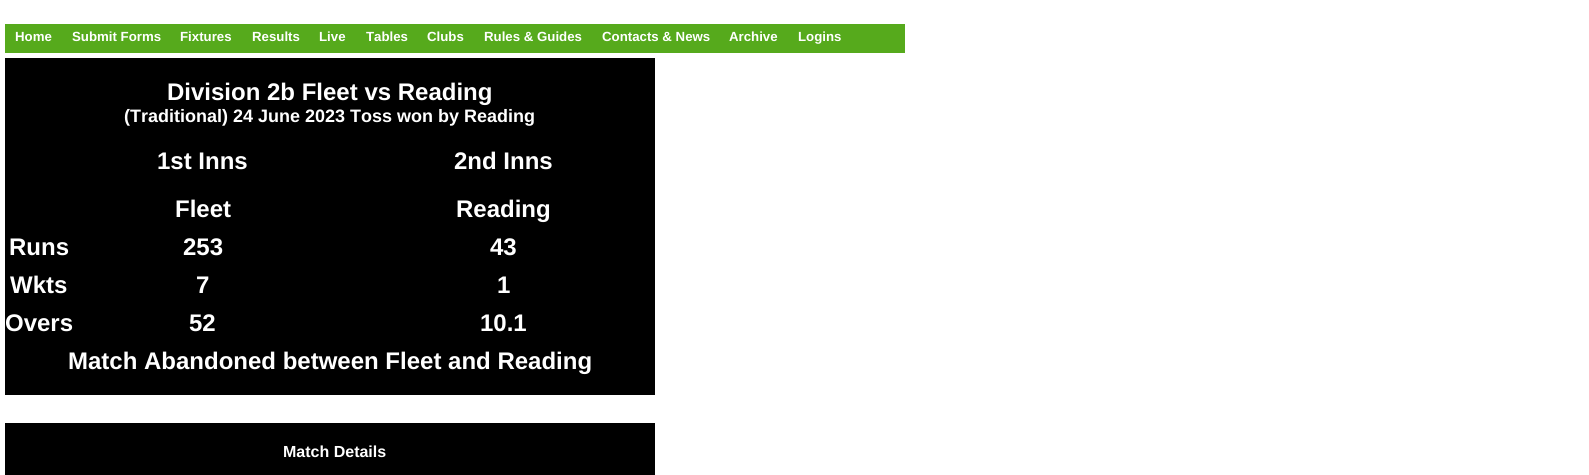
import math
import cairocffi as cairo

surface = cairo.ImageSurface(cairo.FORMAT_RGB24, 1589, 475)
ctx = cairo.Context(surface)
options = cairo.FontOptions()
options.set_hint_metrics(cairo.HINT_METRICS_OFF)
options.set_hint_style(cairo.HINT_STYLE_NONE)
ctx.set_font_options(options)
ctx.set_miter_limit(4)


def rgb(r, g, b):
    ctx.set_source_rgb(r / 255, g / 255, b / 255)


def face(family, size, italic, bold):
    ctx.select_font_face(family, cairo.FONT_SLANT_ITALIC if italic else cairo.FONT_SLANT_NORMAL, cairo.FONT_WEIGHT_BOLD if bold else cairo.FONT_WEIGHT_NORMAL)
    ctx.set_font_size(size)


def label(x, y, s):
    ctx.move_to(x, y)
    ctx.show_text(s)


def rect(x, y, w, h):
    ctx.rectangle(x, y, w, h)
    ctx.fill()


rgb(255, 255, 255)
ctx.paint()
rgb(86, 170, 28)
rect(5, 24, 900, 29)
face('Liberation Sans', 13.25, 0, 1)
rgb(255, 255, 255)
label(15, 41, 'Home')
label(72, 41, 'Submit Forms')
label(180, 41, 'Fixtures')
label(252, 41, 'Results')
label(319, 41, 'Live')
label(366, 41, 'Tables')
label(427, 41, 'Clubs')
label(484, 41, 'Rules & Guides')
label(602, 41, 'Contacts & News')
label(729, 41, 'Archive')
label(798, 41, 'Logins')
rgb(0, 0, 0)
rect(5, 58, 650, 337)
face('Liberation Sans', 24, 0, 1)
rgb(255, 255, 255)
label(167, 100, 'Division 2b Fleet vs Reading')
face('Liberation Sans', 18, 0, 1)
label(124, 122, '(Traditional) 24 June 2023 Toss won by Reading')
face('Liberation Sans', 24, 0, 1)
label(157, 169, '1st Inns')
label(454, 169, '2nd Inns')
label(175, 217, 'Fleet')
label(456, 217, 'Reading')
label(9, 255, 'Runs')
label(183, 255, '253')
label(490, 255, '43')
label(10, 293, 'Wkts')
label(196, 293, '7')
label(497, 293, '1')
label(5, 331, 'Overs')
label(189, 331, '52')
label(480, 331, '10.1')
label(68, 369, 'Match Abandoned between Fleet and Reading')
rgb(0, 0, 0)
rect(5, 423, 650, 52)
face('Liberation Sans', 16, 0, 1)
rgb(255, 255, 255)
label(283, 457, 'Match Details')
surface.write_to_png('render.png')
